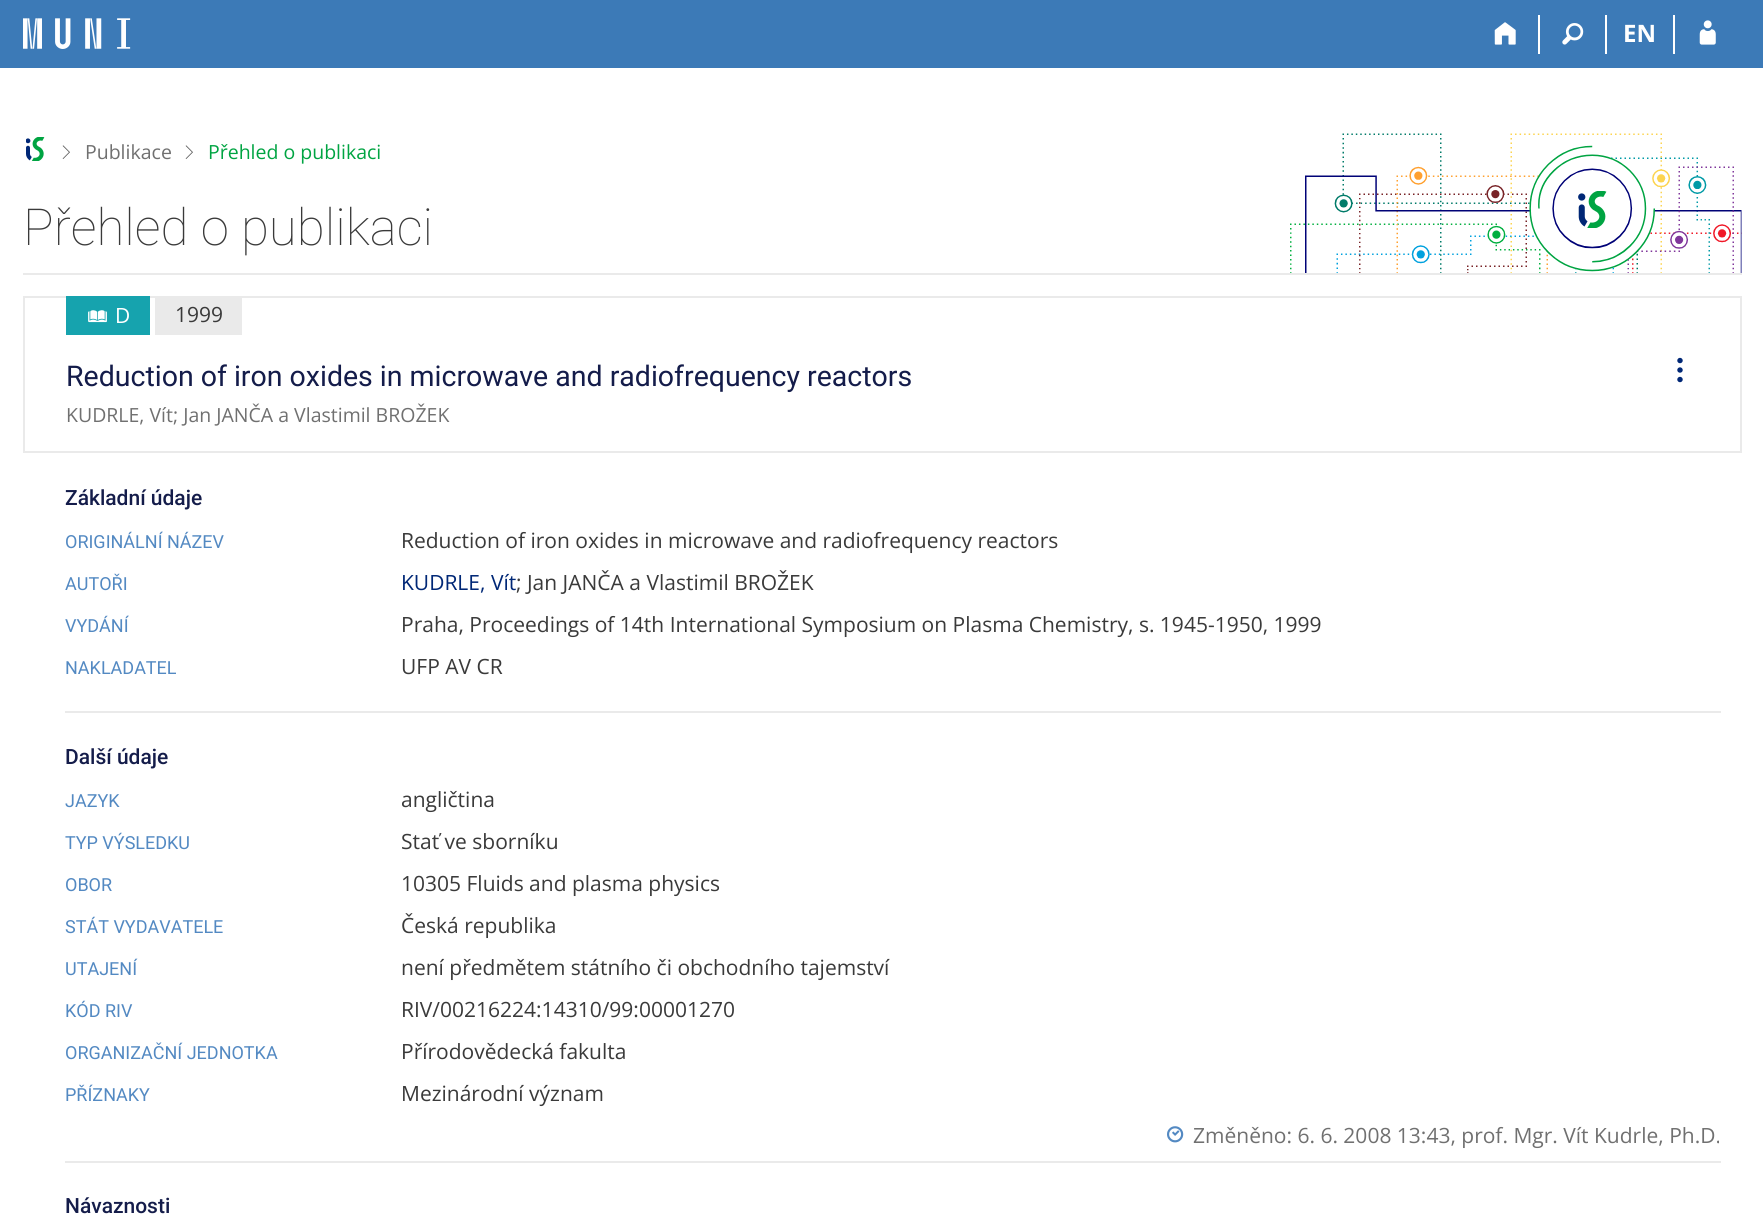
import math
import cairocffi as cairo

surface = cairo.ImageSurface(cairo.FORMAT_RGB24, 1763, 1214)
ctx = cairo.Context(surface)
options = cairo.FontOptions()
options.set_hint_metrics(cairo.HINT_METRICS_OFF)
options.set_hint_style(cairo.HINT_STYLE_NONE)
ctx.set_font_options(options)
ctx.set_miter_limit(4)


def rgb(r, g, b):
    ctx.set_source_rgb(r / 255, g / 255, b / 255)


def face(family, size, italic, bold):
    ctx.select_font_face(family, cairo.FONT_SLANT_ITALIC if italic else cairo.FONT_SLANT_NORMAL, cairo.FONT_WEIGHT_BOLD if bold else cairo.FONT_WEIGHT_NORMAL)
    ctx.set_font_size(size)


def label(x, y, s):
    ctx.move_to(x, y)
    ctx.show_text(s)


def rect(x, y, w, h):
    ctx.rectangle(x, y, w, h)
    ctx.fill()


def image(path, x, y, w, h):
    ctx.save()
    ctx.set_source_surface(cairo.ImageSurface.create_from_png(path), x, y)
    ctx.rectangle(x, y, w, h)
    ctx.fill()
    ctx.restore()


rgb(255, 255, 255)
ctx.paint()
rgb(60, 122, 183)
rect(0, 0, 1763, 68)
image('image0.png', 23, 18, 108, 31)
rgb(255, 255, 255)
rect(1538, 15, 2, 39)
image('image1.png', 1494, 22, 22, 23)
rect(1605, 15, 2, 39)
image('image2.png', 1562, 23, 22, 22)
rect(1673, 15, 2, 39)
face('Open Sans', 24, 0, 1)
label(1623, 42, 'EN')
image('image3.png', 1699, 20, 17, 25)
image('image4.png', 26, 137, 19, 24)
image('image5.png', 62, 145, 8, 14)
face('Open Sans', 19.5, 0, 0)
rgb(112, 112, 112)
label(85, 159, 'Publikace')
image('image5.png', 185, 145, 8, 14)
rgb(0, 164, 66)
label(208, 159, 'Přehled o publikaci')
face('Roboto Thin', 51, 0, 0)
rgb(58, 58, 58)
label(23, 245, 'Přehled o publikaci')
image('image6.png', 1290, 133, 452, 140)
image('image7.png', 1578, 191, 29, 37)
rgb(234, 234, 234)
rect(23, 273, 1719, 2)
ctx.rectangle(24, 297, 1717, 155)
ctx.stroke()
rgb(22, 163, 174)
rect(66, 296, 84, 39)
image('image8.png', 88, 310, 19, 13)
face('Open Sans', 21, 0, 0)
rgb(255, 255, 255)
label(115, 323, 'D')
rgb(234, 234, 234)
rect(155, 298, 87, 37)
rgb(58, 58, 58)
label(175, 322, '1999')
face('Roboto', 28.5, 0, 0)
rgb(20, 28, 74)
label(66, 386, 'Reduction of iron oxides in microwave and radiofrequency reactors')
face('Open Sans', 19.5, 0, 0)
rgb(112, 112, 112)
label(66, 422, 'KUDRLE, Vít; Jan JANČA a Vlastimil BROŽEK')
image('image9.png', 1677, 357, 6, 26)
face('Roboto Medium', 21, 0, 0)
rgb(20, 28, 74)
label(65, 505, 'Základní údaje')
face('Roboto', 18, 0, 0)
rgb(83, 137, 194)
label(65, 548, 'ORIGINÁLNÍ NÁZEV')
face('Open Sans', 21, 0, 0)
rgb(58, 58, 58)
label(401, 548, 'Reduction of iron oxides in microwave and radiofrequency reactors')
face('Roboto', 18, 0, 0)
rgb(83, 137, 194)
label(65, 590, 'AUTOŘI')
face('Open Sans', 21, 0, 0)
rgb(0, 39, 118)
label(401, 590, 'KUDRLE, Vít')
rgb(58, 58, 58)
label(516, 590, '; Jan JANČA a Vlastimil BROŽEK')
face('Roboto', 18, 0, 0)
rgb(83, 137, 194)
label(65, 632, 'VYDÁNÍ')
face('Open Sans', 21, 0, 0)
rgb(58, 58, 58)
label(401, 632, 'Praha, Proceedings of 14th International Symposium on Plasma Chemistry, s. 1945-1950, 1999')
face('Roboto', 18, 0, 0)
rgb(83, 137, 194)
label(65, 674, 'NAKLADATEL')
face('Open Sans', 21, 0, 0)
rgb(58, 58, 58)
label(401, 674, 'UFP AV CR')
rgb(234, 234, 234)
rect(65, 711, 1656, 2)
face('Roboto Medium', 21, 0, 0)
rgb(20, 28, 74)
label(65, 764, 'Další údaje')
face('Roboto', 18, 0, 0)
rgb(83, 137, 194)
label(65, 807, 'JAZYK')
face('Open Sans', 21, 0, 0)
rgb(58, 58, 58)
label(401, 807, 'angličtina')
face('Roboto', 18, 0, 0)
rgb(83, 137, 194)
label(65, 849, 'TYP VÝSLEDKU')
face('Open Sans', 21, 0, 0)
rgb(58, 58, 58)
label(401, 849, 'Stať ve sborníku')
face('Roboto', 18, 0, 0)
rgb(83, 137, 194)
label(65, 891, 'OBOR')
face('Open Sans', 21, 0, 0)
rgb(58, 58, 58)
label(401, 891, '10305 Fluids and plasma physics')
face('Roboto', 18, 0, 0)
rgb(83, 137, 194)
label(65, 933, 'STÁT VYDAVATELE')
face('Open Sans', 21, 0, 0)
rgb(58, 58, 58)
label(401, 933, 'Česká republika')
face('Roboto', 18, 0, 0)
rgb(83, 137, 194)
label(65, 975, 'UTAJENÍ')
face('Open Sans', 21, 0, 0)
rgb(58, 58, 58)
label(401, 975, 'není předmětem státního či obchodního tajemství')
face('Roboto', 18, 0, 0)
rgb(83, 137, 194)
label(65, 1017, 'KÓD RIV')
face('Open Sans', 21, 0, 0)
rgb(58, 58, 58)
label(401, 1017, 'RIV/00216224:14310/99:00001270')
face('Roboto', 18, 0, 0)
rgb(83, 137, 194)
label(65, 1059, 'ORGANIZAČNÍ JEDNOTKA')
face('Open Sans', 21, 0, 0)
rgb(58, 58, 58)
label(401, 1059, 'Přírodovědecká fakulta')
face('Roboto', 18, 0, 0)
rgb(83, 137, 194)
label(65, 1101, 'PŘÍZNAKY')
face('Open Sans', 21, 0, 0)
rgb(58, 58, 58)
label(401, 1101, 'Mezinárodní význam')
image('image10.png', 1167, 1126, 17, 17)
rgb(112, 112, 112)
label(1193, 1143, 'Změněno: 6. 6. 2008 13:43, prof. Mgr. Vít Kudrle, Ph.D.')
rgb(234, 234, 234)
rect(65, 1161, 1656, 2)
face('Roboto Medium', 21, 0, 0)
rgb(20, 28, 74)
label(65, 1213, 'Návaznosti')
surface.write_to_png('render.png')
